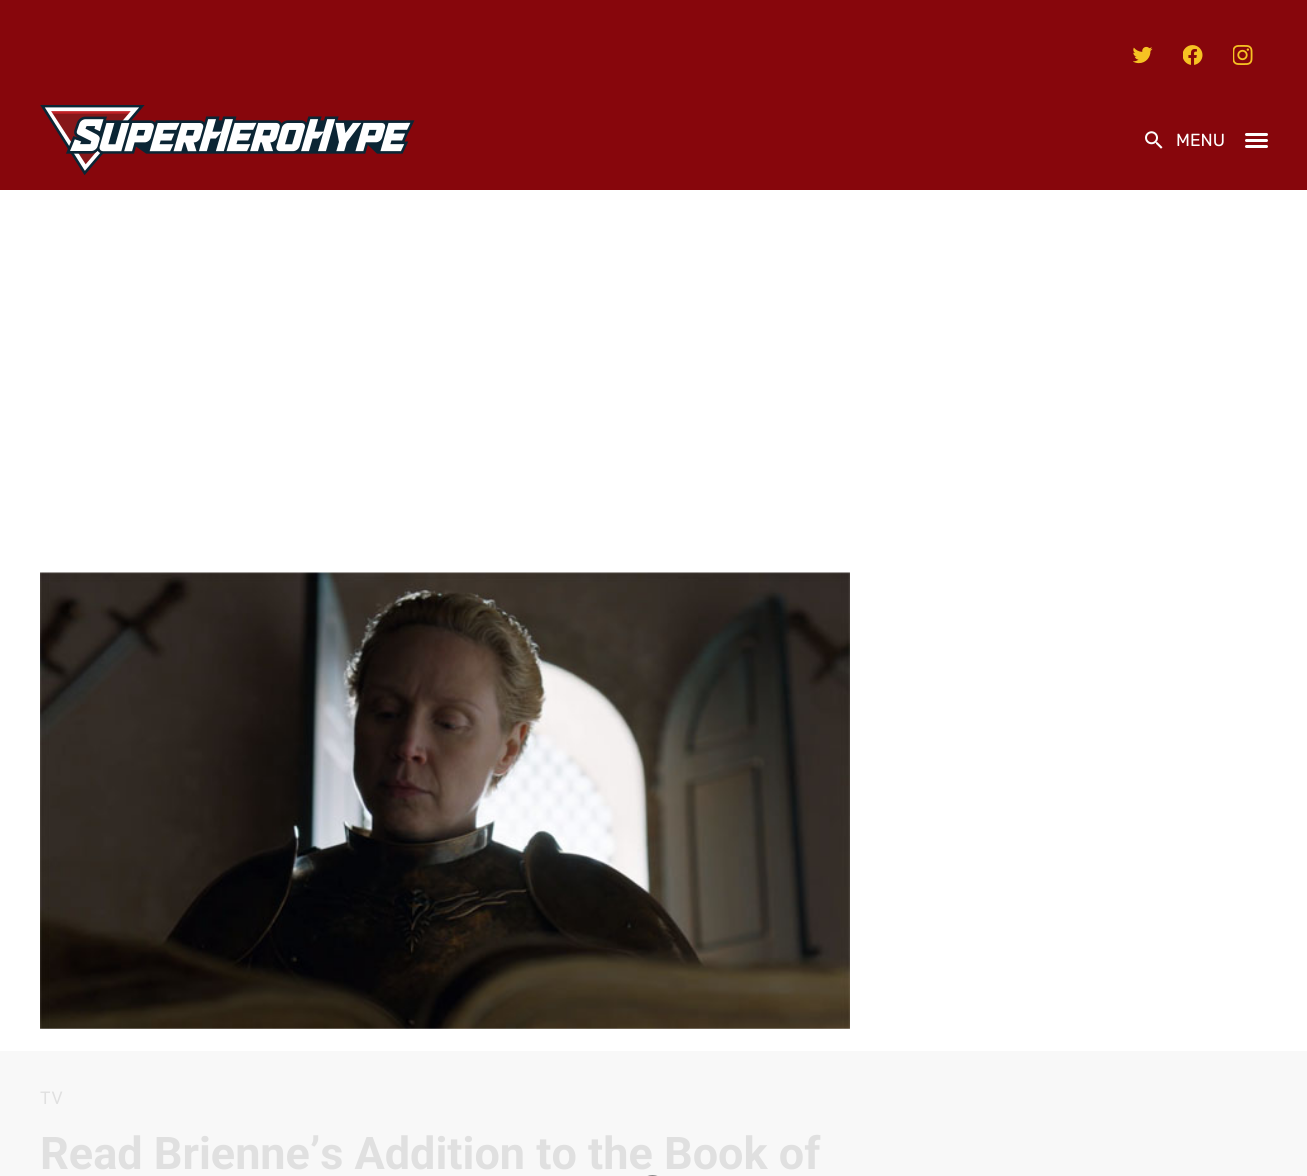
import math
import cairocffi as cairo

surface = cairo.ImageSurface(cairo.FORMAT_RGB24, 1307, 1176)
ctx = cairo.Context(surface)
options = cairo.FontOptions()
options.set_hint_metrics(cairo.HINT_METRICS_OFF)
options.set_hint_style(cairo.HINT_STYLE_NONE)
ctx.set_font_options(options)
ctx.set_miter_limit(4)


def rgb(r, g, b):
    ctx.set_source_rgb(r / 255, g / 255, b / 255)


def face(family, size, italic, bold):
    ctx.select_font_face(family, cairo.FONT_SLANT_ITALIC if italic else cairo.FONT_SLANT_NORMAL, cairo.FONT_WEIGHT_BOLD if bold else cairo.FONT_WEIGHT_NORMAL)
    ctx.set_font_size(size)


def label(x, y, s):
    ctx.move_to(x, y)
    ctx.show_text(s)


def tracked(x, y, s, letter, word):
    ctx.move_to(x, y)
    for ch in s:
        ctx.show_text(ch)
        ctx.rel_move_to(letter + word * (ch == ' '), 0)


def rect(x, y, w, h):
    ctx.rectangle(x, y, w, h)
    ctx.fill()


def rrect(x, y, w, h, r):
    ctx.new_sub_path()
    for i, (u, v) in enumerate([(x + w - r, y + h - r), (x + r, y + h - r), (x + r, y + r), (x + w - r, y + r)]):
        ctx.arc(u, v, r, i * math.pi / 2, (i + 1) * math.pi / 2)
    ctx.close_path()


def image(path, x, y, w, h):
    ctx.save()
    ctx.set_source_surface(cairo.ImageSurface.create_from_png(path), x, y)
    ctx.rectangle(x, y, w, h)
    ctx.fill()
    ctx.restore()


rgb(255, 255, 255)
ctx.paint()
rgb(248, 248, 248)
rect(0, 1051, 1307, 125)
rgb(135, 6, 12)
rect(0, 0, 1307, 190)
image('image0.png', 1133, 46, 20, 18)
image('image1.png', 1183, 45, 20, 20)
image('image2.png', 1233, 45, 20, 20)
image('image3.png', 40, 105, 375, 70)
image('image4.png', 1145, 131, 18, 18)
face('Rubik', 17.5, 0, 0)
rgb(254, 254, 254)
label(1176, 146, 'MENU')
rrect(1245, 133, 23, 3, 1.5)
ctx.fill()
rrect(1245, 139, 23, 3, 1.5)
ctx.fill()
rrect(1245, 145, 23, 3, 1.5)
ctx.fill()
image('image5.png', 40, 572, 810, 457)
face('Roboto', 17.5, 0, 0)
rgb(224, 224, 224)
tracked(40, 1104, 'TV', 1, 0)
face('Roboto', 45, 0, 1)
label(40, 1169, 'Read Brienne’s Addition to the Book of')
rrect(639.5, 1175.5, 26, 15, 13)
rgb(136, 136, 136)
ctx.set_line_width(1)
ctx.stroke()
surface.write_to_png('render.png')
